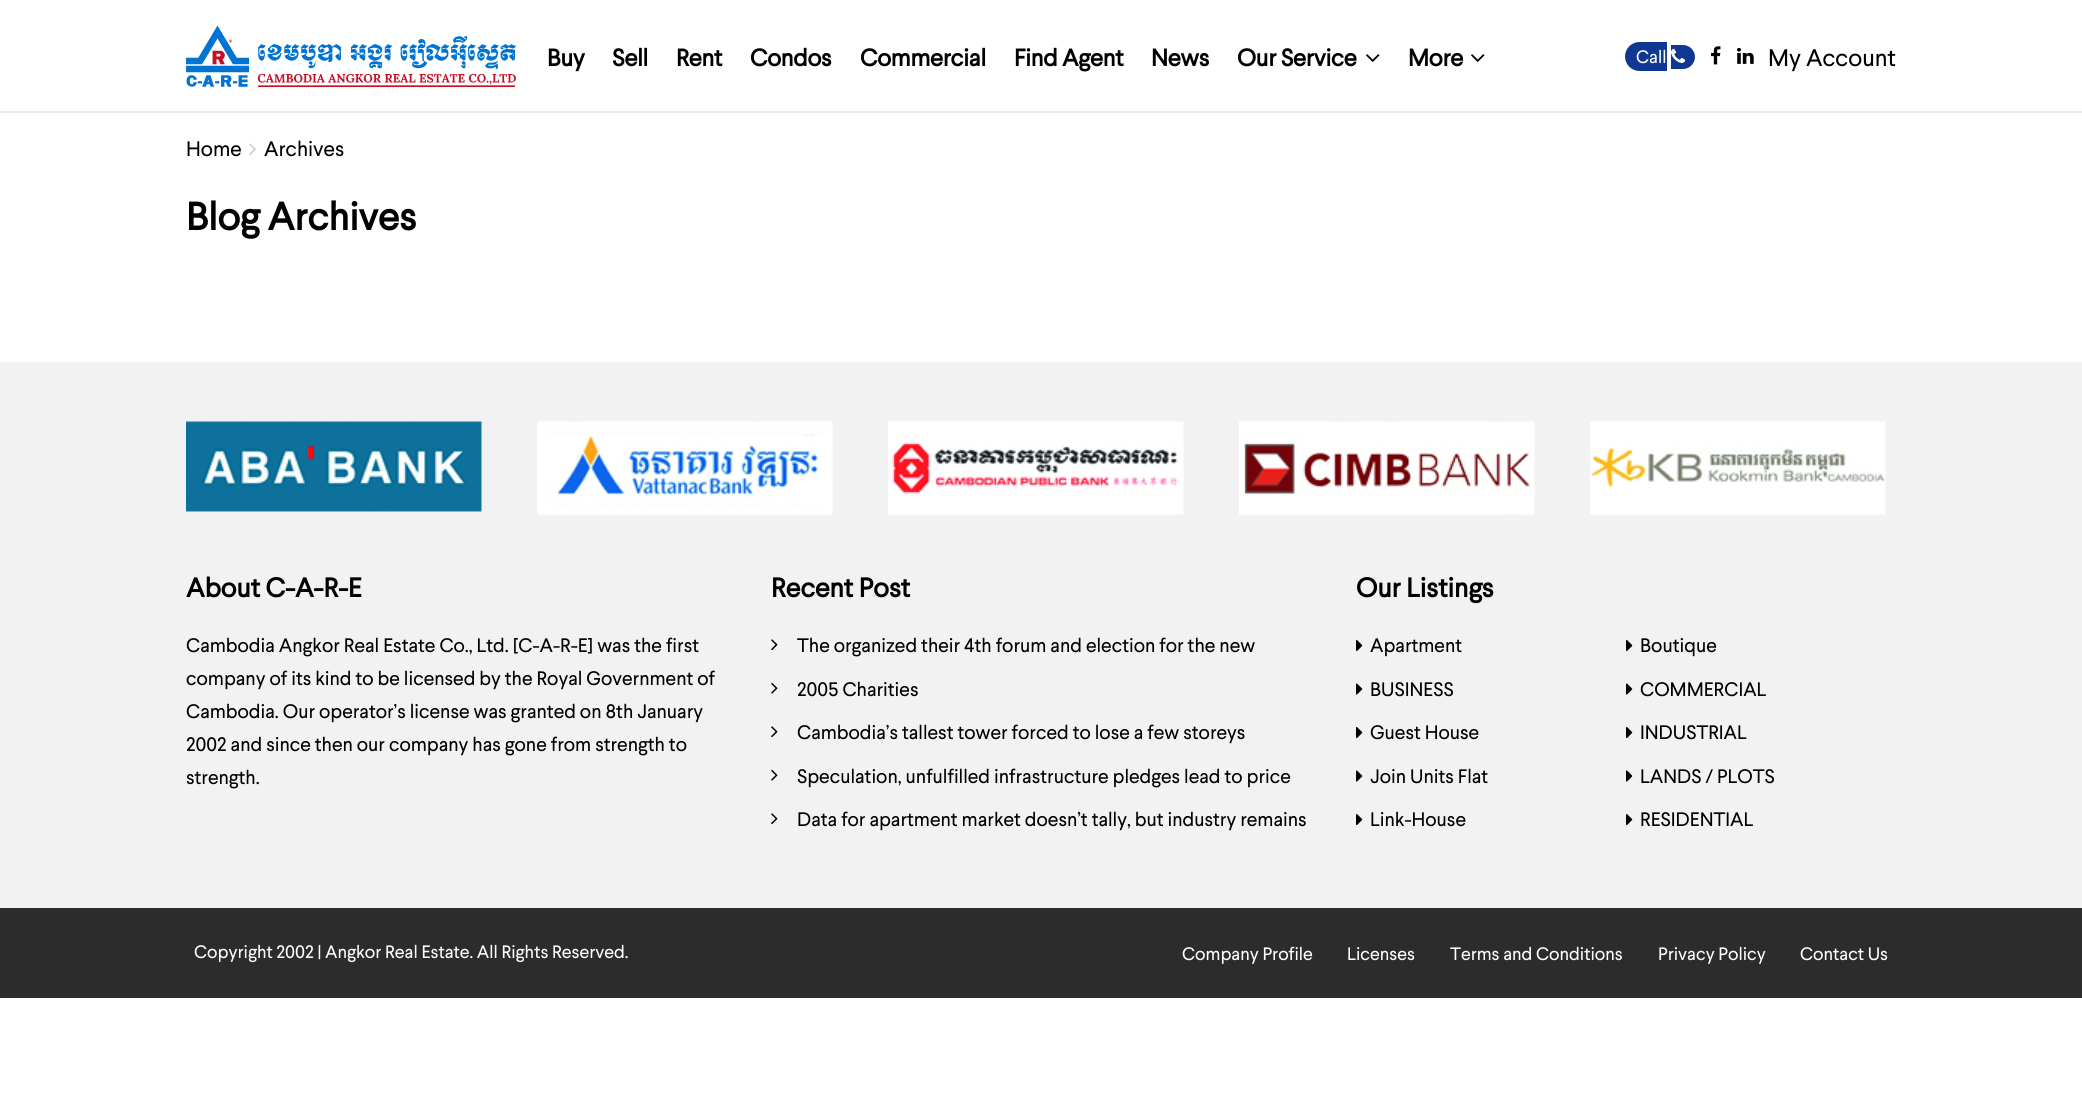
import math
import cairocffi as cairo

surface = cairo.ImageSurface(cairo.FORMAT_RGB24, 2082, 1095)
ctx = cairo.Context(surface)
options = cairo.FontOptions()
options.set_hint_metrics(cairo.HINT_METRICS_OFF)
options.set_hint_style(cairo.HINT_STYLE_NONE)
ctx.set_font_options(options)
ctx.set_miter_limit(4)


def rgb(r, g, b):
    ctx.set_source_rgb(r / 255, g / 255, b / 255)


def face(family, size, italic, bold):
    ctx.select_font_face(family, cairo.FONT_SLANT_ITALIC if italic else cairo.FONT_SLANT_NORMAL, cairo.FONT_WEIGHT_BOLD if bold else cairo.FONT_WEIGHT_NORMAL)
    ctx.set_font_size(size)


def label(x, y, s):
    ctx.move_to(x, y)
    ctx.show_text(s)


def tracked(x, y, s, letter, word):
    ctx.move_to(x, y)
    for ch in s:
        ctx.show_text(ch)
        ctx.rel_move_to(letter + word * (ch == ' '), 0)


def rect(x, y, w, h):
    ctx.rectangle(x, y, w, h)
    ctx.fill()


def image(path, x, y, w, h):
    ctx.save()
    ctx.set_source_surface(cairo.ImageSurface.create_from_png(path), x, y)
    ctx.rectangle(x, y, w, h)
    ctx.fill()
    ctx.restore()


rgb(255, 255, 255)
ctx.paint()
rgb(230, 233, 237)
rect(0, 111, 2082, 2)
image('image0.png', 186, 26, 330, 61)
face('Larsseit', 24, 0, 1)
rgb(0, 0, 0)
tracked(547, 66, 'Buy', -0.25, 0)
tracked(612, 66, 'Sell', -0.25, 0)
tracked(676, 66, 'Rent', -0.25, 0)
tracked(750, 66, 'Condos', -0.25, 0)
tracked(860, 66, 'Commercial', -0.25, 0)
tracked(1014, 66, 'Find Agent', -0.25, 0)
tracked(1151, 66, 'News', -0.25, 0)
tracked(1237, 66, 'Our Service', -0.25, 0)
image('image1.png', 1366, 54, 14, 8)
tracked(1408, 66, 'More', -0.25, 0)
image('image1.png', 1471, 54, 14, 8)
rgb(16, 56, 146)
ctx.new_path()
ctx.move_to(1639.5, 42)
ctx.line_to(1667, 42)
ctx.line_to(1667, 71)
ctx.line_to(1639.5, 71)
ctx.curve_to(1631.5, 71, 1625, 64.5, 1625, 56.5)
ctx.curve_to(1625, 48.5, 1631.5, 42, 1639.5, 42)
ctx.close_path()
ctx.fill()
ctx.new_path()
ctx.move_to(1671, 45)
ctx.line_to(1683, 45)
ctx.curve_to(1689.5, 45, 1695, 50.5, 1695, 57)
ctx.curve_to(1695, 63.5, 1689.5, 69, 1683, 69)
ctx.line_to(1671, 69)
ctx.close_path()
ctx.fill()
face('Larsseit', 18, 0, 0)
rgb(255, 255, 255)
label(1636, 63, 'Call')
image('image2.png', 1671, 48, 15, 15)
image('image3.png', 1711, 46, 10, 19)
image('image4.png', 1737, 47, 17, 17)
face('Larsseit', 24, 0, 0)
rgb(0, 0, 0)
label(1768, 66, 'My Account')
face('Larsseit', 21, 0, 0)
label(186, 156, 'Home')
image('image5.png', 249, 143, 7, 12)
label(264, 156, 'Archives')
face('Larsseit', 39, 0, 1)
label(186, 230, 'Blog Archives')
rgb(242, 242, 242)
rect(0, 362, 2082, 546)
image('image6.png', 186, 421, 296, 91)
image('image7.png', 537, 421, 296, 94)
image('image8.png', 888, 421, 296, 94)
image('image9.png', 1239, 421, 296, 94)
image('image10.png', 1590, 421, 296, 94)
face('Larsseit', 27, 0, 1)
rgb(0, 0, 0)
label(186, 597, 'About C-A-R-E')
face('Larsseit', 19.5, 0, 0)
label(186, 652, 'Cambodia Angkor Real Estate Co., Ltd. [C-A-R-E] was the first')
label(186, 685, 'company of its kind to be licensed by the Royal Government of')
label(186, 718, 'Cambodia. Our operator’s license was granted on 8th January')
label(186, 751, '2002 and since then our company has gone from strength to')
label(186, 784, 'strength.')
face('Larsseit', 27, 0, 1)
label(771, 597, 'Recent Post')
image('image11.png', 771, 639, 7, 12)
face('Larsseit', 19.5, 0, 0)
label(797, 652, 'The organized their 4th forum and election for the new')
image('image12.png', 771, 682, 7, 12)
label(797, 696, '2005 Charities')
image('image11.png', 771, 726, 7, 12)
label(797, 739, 'Cambodia’s tallest tower forced to lose a few storeys')
image('image12.png', 771, 769, 7, 12)
label(797, 783, 'Speculation, unfulfilled infrastructure pledges lead to price')
image('image11.png', 771, 813, 7, 12)
label(797, 826, 'Data for apartment market doesn’t tally, but industry remains')
face('Larsseit', 27, 0, 1)
label(1356, 597, 'Our Listings')
image('image13.png', 1356, 640, 7, 12)
face('Larsseit', 19.5, 0, 0)
label(1370, 652, 'Apartment')
image('image13.png', 1626, 640, 7, 12)
label(1640, 652, 'Boutique')
image('image14.png', 1356, 683, 7, 12)
label(1370, 696, 'BUSINESS')
image('image14.png', 1626, 683, 7, 12)
label(1640, 696, 'COMMERCIAL')
image('image13.png', 1356, 727, 7, 12)
label(1370, 739, 'Guest House')
image('image13.png', 1626, 727, 7, 12)
label(1640, 739, 'INDUSTRIAL')
image('image14.png', 1356, 770, 7, 12)
label(1370, 783, 'Join Units Flat')
image('image14.png', 1626, 770, 7, 12)
label(1640, 783, 'LANDS / PLOTS')
image('image13.png', 1356, 814, 7, 12)
label(1370, 826, 'Link-House')
image('image13.png', 1626, 814, 7, 12)
label(1640, 826, 'RESIDENTIAL')
rgb(44, 44, 44)
rect(0, 908, 2082, 90)
face('Larsseit', 18, 0, 0)
rgb(255, 255, 255)
label(194, 958, 'Copyright 2002 | Angkor Real Estate. All Rights Reserved.')
label(1182, 960, 'Company Profile')
label(1347, 960, 'Licenses')
label(1450, 960, 'Terms and Conditions')
label(1658, 960, 'Privacy Policy')
label(1800, 960, 'Contact Us')
surface.write_to_png('render.png')
